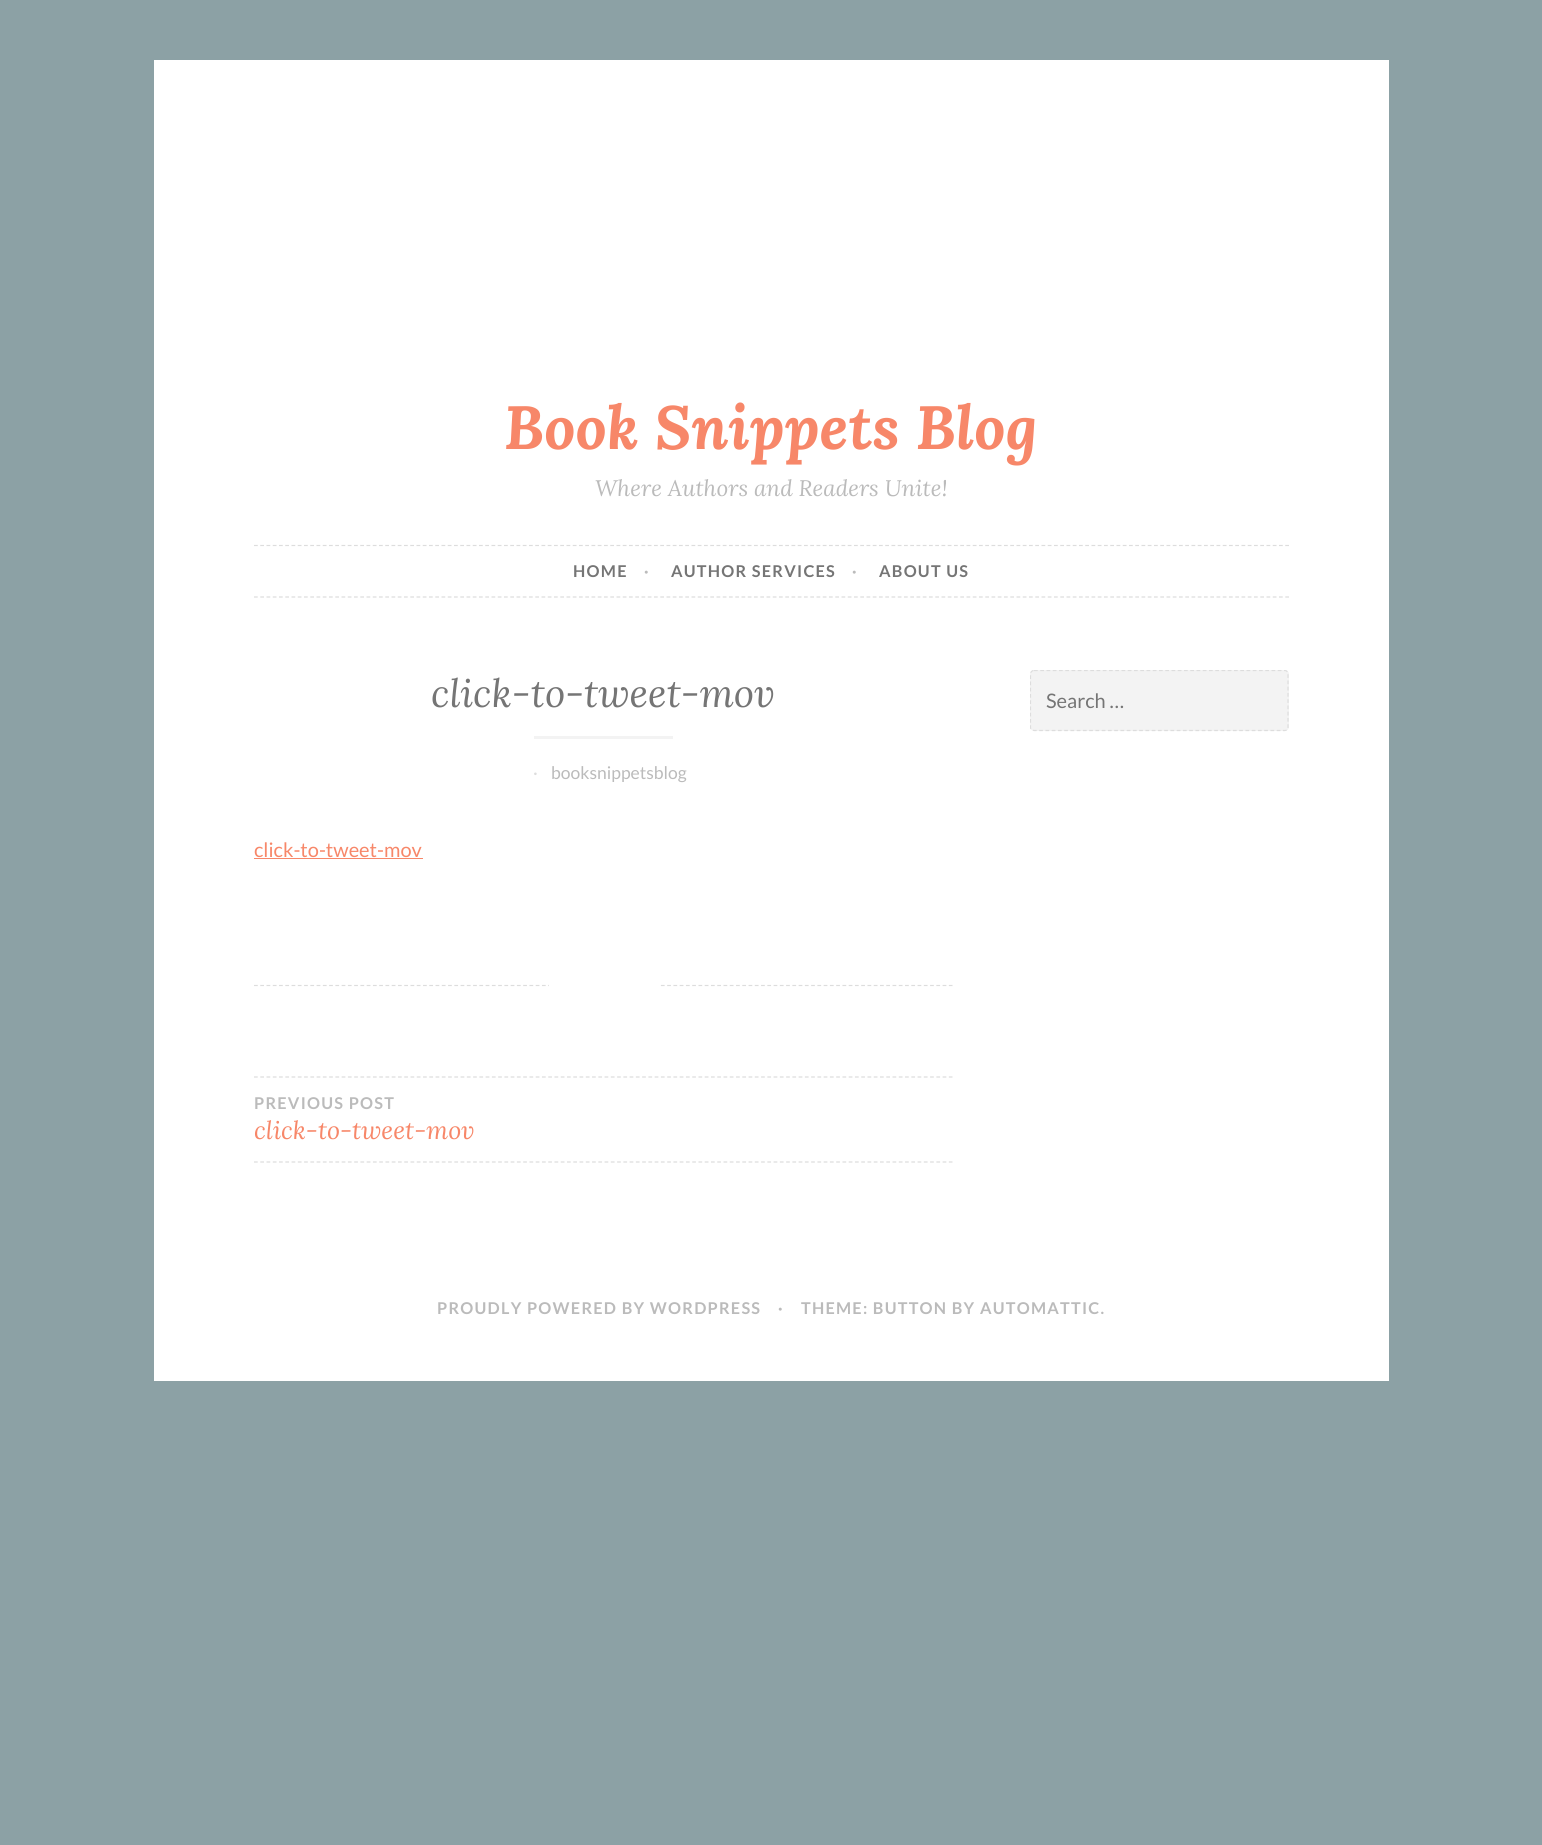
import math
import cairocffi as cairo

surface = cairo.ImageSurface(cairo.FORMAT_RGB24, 1542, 1845)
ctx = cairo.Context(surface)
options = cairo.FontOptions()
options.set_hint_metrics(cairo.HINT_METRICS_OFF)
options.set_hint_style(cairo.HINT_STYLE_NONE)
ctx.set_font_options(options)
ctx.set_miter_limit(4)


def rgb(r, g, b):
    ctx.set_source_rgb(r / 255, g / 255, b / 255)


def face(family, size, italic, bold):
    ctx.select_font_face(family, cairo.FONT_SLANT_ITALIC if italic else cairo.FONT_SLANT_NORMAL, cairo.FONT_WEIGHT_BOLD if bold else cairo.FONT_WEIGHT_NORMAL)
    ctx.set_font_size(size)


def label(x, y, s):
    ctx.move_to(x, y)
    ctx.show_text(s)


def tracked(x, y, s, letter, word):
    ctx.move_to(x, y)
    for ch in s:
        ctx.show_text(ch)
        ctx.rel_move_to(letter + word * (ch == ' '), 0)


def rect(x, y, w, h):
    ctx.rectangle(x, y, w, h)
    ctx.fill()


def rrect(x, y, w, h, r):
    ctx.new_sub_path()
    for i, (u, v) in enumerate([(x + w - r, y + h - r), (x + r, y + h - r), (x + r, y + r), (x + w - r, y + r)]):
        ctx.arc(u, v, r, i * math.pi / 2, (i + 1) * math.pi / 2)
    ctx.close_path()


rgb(140, 161, 165)
ctx.paint()
rgb(255, 255, 255)
rect(154, 60, 1235, 1321)
face('Lora', 61, 1, 1)
rgb(247, 135, 105)
label(504, 449, 'Book Snippets Blog')
face('Lora', 22.5, 1, 0)
rgb(187, 187, 187)
label(595, 496, 'Where Authors and Readers Unite!')
ctx.new_path()
ctx.move_to(254, 545.5)
ctx.line_to(1289, 545.5)
rgb(221, 221, 221)
ctx.set_line_width(1.2)
ctx.set_dash([3.75, 2.5])
ctx.stroke()
ctx.new_path()
ctx.move_to(254, 597)
ctx.line_to(1289, 597)
ctx.stroke()
face('Lato', 16.25, 0, 1)
rgb(117, 117, 117)
tracked(573, 577, 'HOME', 1.25, 0)
rgb(187, 187, 187)
tracked(644, 577, '·', 1.25, 0)
rgb(117, 117, 117)
tracked(671, 577, 'AUTHOR SERVICES', 1.25, 0)
rgb(187, 187, 187)
tracked(852, 577, '·', 1.25, 0)
rgb(117, 117, 117)
tracked(879, 577, 'ABOUT US', 1.25, 0)
ctx.new_path()
ctx.move_to(254, 985.5)
ctx.line_to(952.5, 985.5)
rgb(221, 221, 221)
ctx.set_dash([3.75, 2.51])
ctx.stroke()
face('Lora', 39, 1, 0)
rgb(117, 117, 117)
label(431, 707, 'click-to-tweet-mov')
rgb(243, 243, 243)
rect(534, 736, 139, 3)
face('Lato', 17.5, 0, 0)
rgb(221, 221, 221)
label(533, 779, '·')
rgb(187, 187, 187)
label(551, 779, 'booksnippetsblog')
face('Lato', 20, 0, 0)
rgb(247, 135, 105)
label(254, 857, 'click-to-tweet-mov')
rect(254, 858, 169, 1)
rgb(255, 255, 255)
rect(549, 984, 110, 3)
ctx.new_path()
ctx.move_to(254, 1077)
ctx.line_to(952.5, 1077)
rgb(221, 221, 221)
ctx.stroke()
ctx.new_path()
ctx.move_to(254, 1162)
ctx.line_to(952.5, 1162)
ctx.stroke()
face('Lato', 16.25, 0, 1)
rgb(187, 187, 187)
tracked(254, 1109, 'PREVIOUS POST', 1.25, 0)
face('Lora', 25, 1, 0)
rgb(247, 135, 105)
label(254, 1139, 'click-to-tweet-mov')
rgb(243, 243, 243)
rrect(1030, 670, 259, 61, 4)
ctx.fill()
ctx.save()
ctx.rectangle(1030, 670, 259, 114)
ctx.clip()
ctx.new_path()
ctx.move_to(1034, 670.5)
ctx.line_to(1285, 670.5)
ctx.curve_to(1286.5, 670.5, 1288, 672, 1288, 674)
ctx.line_to(1288, 727.5)
ctx.curve_to(1288, 729, 1286.5, 730.5, 1285, 730.5)
ctx.line_to(1034, 730.5)
ctx.curve_to(1032, 730.5, 1030.5, 729, 1030.5, 727.5)
ctx.line_to(1030.5, 674)
ctx.curve_to(1030.5, 672, 1032, 670.5, 1034, 670.5)
ctx.close_path()
rgb(221, 221, 221)
ctx.set_dash([3.75, 2.5])
ctx.stroke()
ctx.restore()
face('Lato', 20, 0, 0)
rgb(117, 117, 117)
label(1046, 708, 'Search …')
face('Lato', 16.25, 0, 1)
rgb(187, 187, 187)
tracked(437, 1314, 'PROUDLY POWERED BY WORDPRESS', 1.25, 0)
tracked(778, 1314, '·', 1.25, 0)
tracked(801, 1314, 'THEME: BUTTON BY AUTOMATTIC.', 1.25, 0)
surface.write_to_png('render.png')
